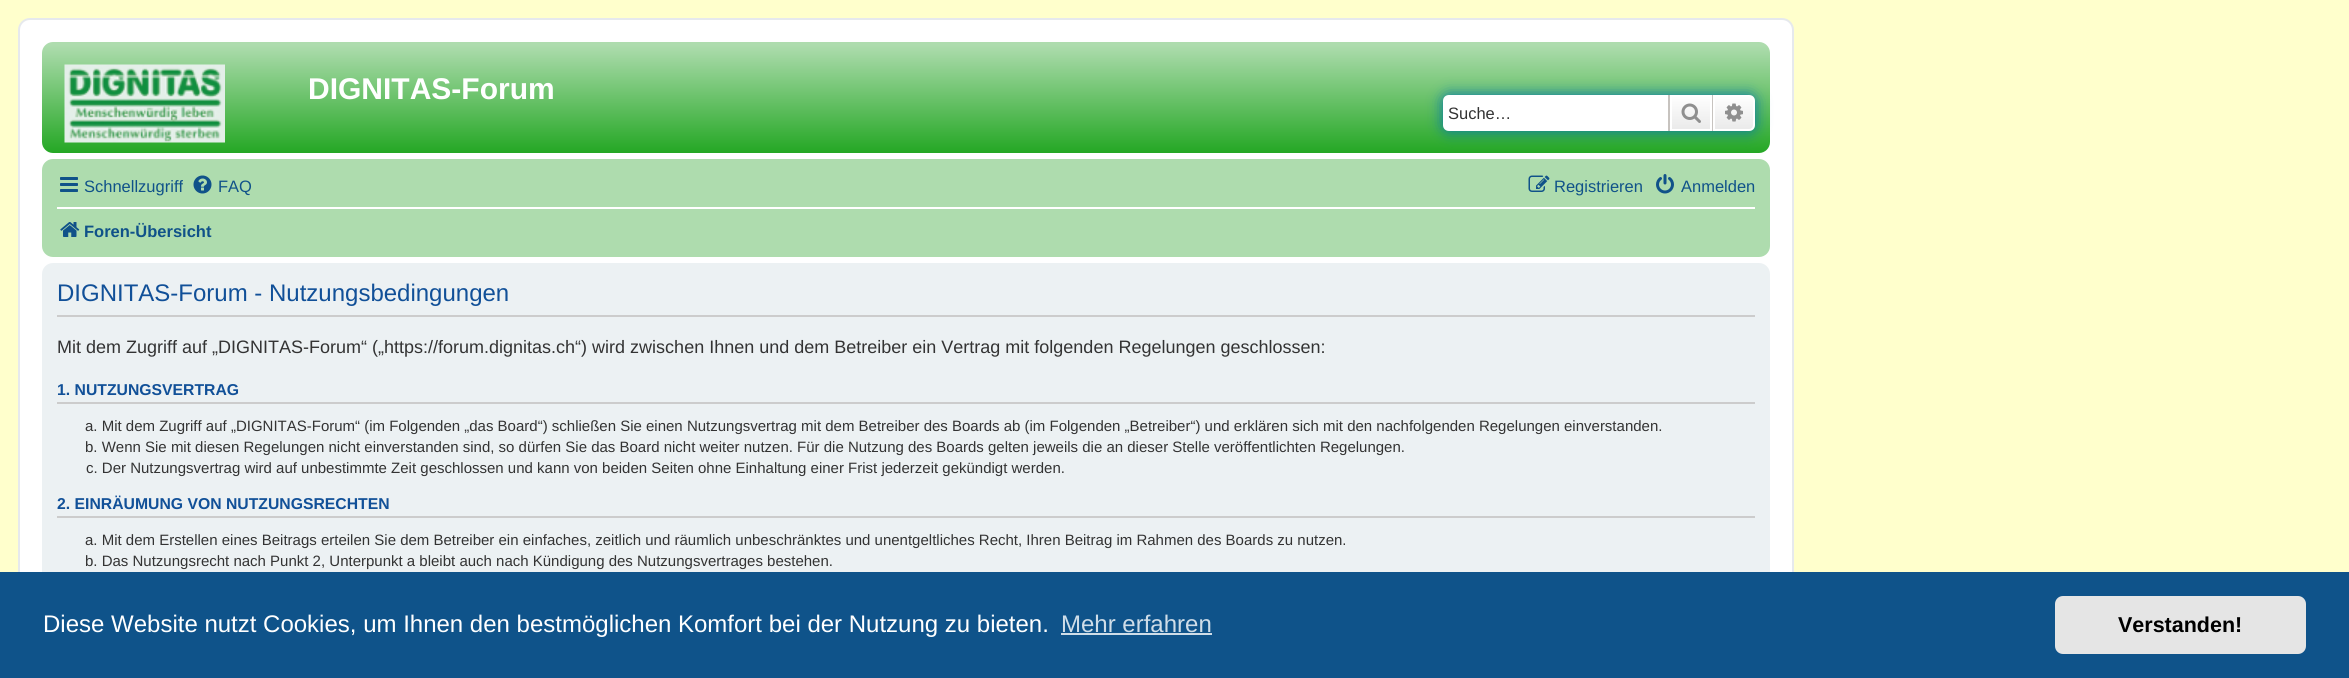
import math
import cairocffi as cairo

surface = cairo.ImageSurface(cairo.FORMAT_RGB24, 2349, 678)
ctx = cairo.Context(surface)
options = cairo.FontOptions()
options.set_hint_metrics(cairo.HINT_METRICS_OFF)
options.set_hint_style(cairo.HINT_STYLE_NONE)
ctx.set_font_options(options)
ctx.set_miter_limit(4)


def rgb(r, g, b):
    ctx.set_source_rgb(r / 255, g / 255, b / 255)


def face(family, size, italic, bold):
    ctx.select_font_face(family, cairo.FONT_SLANT_ITALIC if italic else cairo.FONT_SLANT_NORMAL, cairo.FONT_WEIGHT_BOLD if bold else cairo.FONT_WEIGHT_NORMAL)
    ctx.set_font_size(size)


def label(x, y, s):
    ctx.move_to(x, y)
    ctx.show_text(s)


def rect(x, y, w, h):
    ctx.rectangle(x, y, w, h)
    ctx.fill()


def rrect(x, y, w, h, r):
    ctx.new_sub_path()
    for i, (u, v) in enumerate([(x + w - r, y + h - r), (x + r, y + h - r), (x + r, y + r), (x + w - r, y + r)]):
        ctx.arc(u, v, r, i * math.pi / 2, (i + 1) * math.pi / 2)
    ctx.close_path()


def soft_shadow(x, y, w, h, r, blur, alpha):
    ctx.push_group_with_content(cairo.CONTENT_ALPHA)
    ctx.set_operator(cairo.OPERATOR_SOURCE)
    for i in range(15, -16, -2):
        e = blur * i / 6
        if min(w, h) + 2 * e > 0:
            ctx.set_source_rgba(0, 0, 0, alpha * math.erfc((i - 1) / 8.5) / 2)
            rrect(x - e, y - e, w + 2 * e, h + 2 * e, max(0, min(r + e + blur * .6, min(w, h) / 2 + e)))
            ctx.fill()
    ctx.mask(ctx.pop_group())


def image(path, x, y, w, h):
    ctx.save()
    ctx.set_source_surface(cairo.ImageSurface.create_from_png(path), x, y)
    ctx.rectangle(x, y, w, h)
    ctx.fill()
    ctx.restore()


rgb(255, 255, 204)
ctx.paint()
rgb(255, 255, 255)
rrect(19, 19, 1774, 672, 11)
ctx.fill_preserve()
rgb(230, 233, 237)
ctx.stroke()
gradient = cairo.LinearGradient(906, 42, 906, 180)
gradient.add_color_stop_rgba(0, 0.682, 0.863, 0.682, 1)
gradient.add_color_stop_rgba(0.02, 0.682, 0.863, 0.682, 1)
gradient.add_color_stop_rgba(1, 0.008, 0.604, 0.008, 1)
ctx.set_source(gradient)
rrect(42, 42, 1728, 111, 11)
ctx.fill()
image('image0.png', 64, 64, 161, 79)
face('Liberation Sans', 30, 0, 1)
rgb(255, 255, 255)
label(308, 99, 'DIGNITAS-Forum')
rgb(0, 117, 176)
soft_shadow(1443, 95, 312, 36, 6, 7.5, 1)
rgb(255, 255, 255)
ctx.new_path()
ctx.move_to(1449, 95)
ctx.line_to(1668, 95)
ctx.line_to(1668, 131)
ctx.line_to(1449, 131)
ctx.curve_to(1445.5, 131, 1443, 128.5, 1443, 125)
ctx.line_to(1443, 101)
ctx.curve_to(1443, 97.5, 1445.5, 95, 1449, 95)
ctx.close_path()
ctx.fill()
face('Liberation Sans', 16.5, 0, 0)
rgb(51, 51, 51)
label(1448, 119, 'Suche…')
gradient = cairo.LinearGradient(1691, 95, 1691, 131)
gradient.add_color_stop_rgba(0, 1, 1, 1, 1)
gradient.add_color_stop_rgba(1, 0.914, 0.914, 0.914, 1)
ctx.set_source(gradient)
rect(1672, 97, 38, 32)
ctx.rectangle(1671, 96, 40, 34)
rgb(255, 255, 255)
ctx.stroke()
rgb(199, 195, 191)
rect(1712, 95, 1, 36)
rect(1668, 95, 2, 36)
image('image1.png', 1681, 103, 20, 20)
gradient = cairo.LinearGradient(1734, 95, 1734, 131)
gradient.add_color_stop_rgba(0, 1, 1, 1, 1)
gradient.add_color_stop_rgba(1, 0.914, 0.914, 0.914, 1)
ctx.set_source(gradient)
ctx.new_path()
ctx.move_to(1714, 96)
ctx.line_to(1749, 96)
ctx.curve_to(1752, 96, 1754, 98, 1754, 101)
ctx.line_to(1754, 125)
ctx.curve_to(1754, 128, 1752, 130, 1749, 130)
ctx.line_to(1714, 130)
ctx.close_path()
ctx.fill_preserve()
rgb(255, 255, 255)
ctx.stroke()
image('image2.png', 1725, 103, 18, 19)
rgb(174, 220, 174)
rrect(42, 159, 1728, 98, 11)
ctx.fill()
image('image3.png', 60, 177, 18, 15)
rgb(16, 82, 137)
label(84, 192, 'Schnellzugriff')
image('image4.png', 193, 175, 19, 19)
label(218, 192, 'FAQ')
image('image5.png', 1528, 175, 22, 17)
label(1554, 192, 'Registrieren')
image('image6.png', 1656, 174, 18, 20)
label(1681, 192, 'Anmelden')
rgb(255, 255, 255)
rect(57, 207, 1698, 2)
image('image7.png', 60, 222, 20, 15)
face('Liberation Sans', 16.5, 0, 1)
rgb(16, 82, 137)
label(84, 237, 'Foren-Übersicht')
rgb(236, 241, 243)
rrect(42, 263, 1728, 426, 11)
ctx.fill()
rgb(204, 204, 204)
rect(57, 315, 1698, 2)
face('Liberation Sans', 24, 0, 0)
rgb(17, 80, 152)
label(57, 301, 'DIGNITAS-Forum - Nutzungsbedingungen')
face('Liberation Sans', 18, 0, 0)
rgb(51, 51, 51)
label(57, 353, 'Mit dem Zugriff auf „DIGNITAS-Forum“ („https://forum.dignitas.ch“) wird zwischen Ihnen und dem Betreiber ein Vertrag mit folgenden Regelungen geschlossen:')
rgb(204, 204, 204)
rect(57, 402, 1698, 2)
face('Liberation Sans', 15.75, 0, 1)
rgb(17, 80, 152)
label(57, 395, '1. NUTZUNGSVERTRAG')
face('Liberation Sans', 15, 0, 0)
rgb(51, 51, 51)
label(85, 431, 'a. Mit dem Zugriff auf „DIGNITAS-Forum“ (im Folgenden „das Board“) schließen Sie einen Nutzungsvertrag mit dem Betreiber des Boards ab (im Folgenden „Betreiber“) und erklären sich mit den nachfolgenden Regelungen einverstanden.')
label(85, 452, 'b. Wenn Sie mit diesen Regelungen nicht einverstanden sind, so dürfen Sie das Board nicht weiter nutzen. Für die Nutzung des Boards gelten jeweils die an dieser Stelle veröffentlichten Regelungen.')
label(86, 473, 'c. Der Nutzungsvertrag wird auf unbestimmte Zeit geschlossen und kann von beiden Seiten ohne Einhaltung einer Frist jederzeit gekündigt werden.')
rgb(204, 204, 204)
rect(57, 516, 1698, 2)
face('Liberation Sans', 15.75, 0, 1)
rgb(17, 80, 152)
label(57, 509, '2. EINRÄUMUNG VON NUTZUNGSRECHTEN')
face('Liberation Sans', 15, 0, 0)
rgb(51, 51, 51)
label(85, 545, 'a. Mit dem Erstellen eines Beitrags erteilen Sie dem Betreiber ein einfaches, zeitlich und räumlich unbeschränktes und unentgeltliches Recht, Ihren Beitrag im Rahmen des Boards zu nutzen.')
label(85, 566, 'b. Das Nutzungsrecht nach Punkt 2, Unterpunkt a bleibt auch nach Kündigung des Nutzungsvertrages bestehen.')
rgb(15, 83, 138)
rect(0, 572, 2349, 106)
face('Liberation Sans', 24, 0, 0)
rgb(255, 255, 255)
label(43, 632, 'Diese Website nutzt Cookies, um Ihnen den bestmöglichen Komfort bei der Nutzung zu bieten.')
rgb(207, 221, 232)
label(1061, 632, 'Mehr erfahren')
rect(1061, 633, 151, 2)
rgb(229, 229, 229)
rrect(2055, 596, 251, 58, 8)
ctx.fill()
face('Liberation Sans', 21.5, 0, 1)
rgb(0, 0, 0)
label(2118, 632, 'Verstanden!')
surface.write_to_png('render.png')
